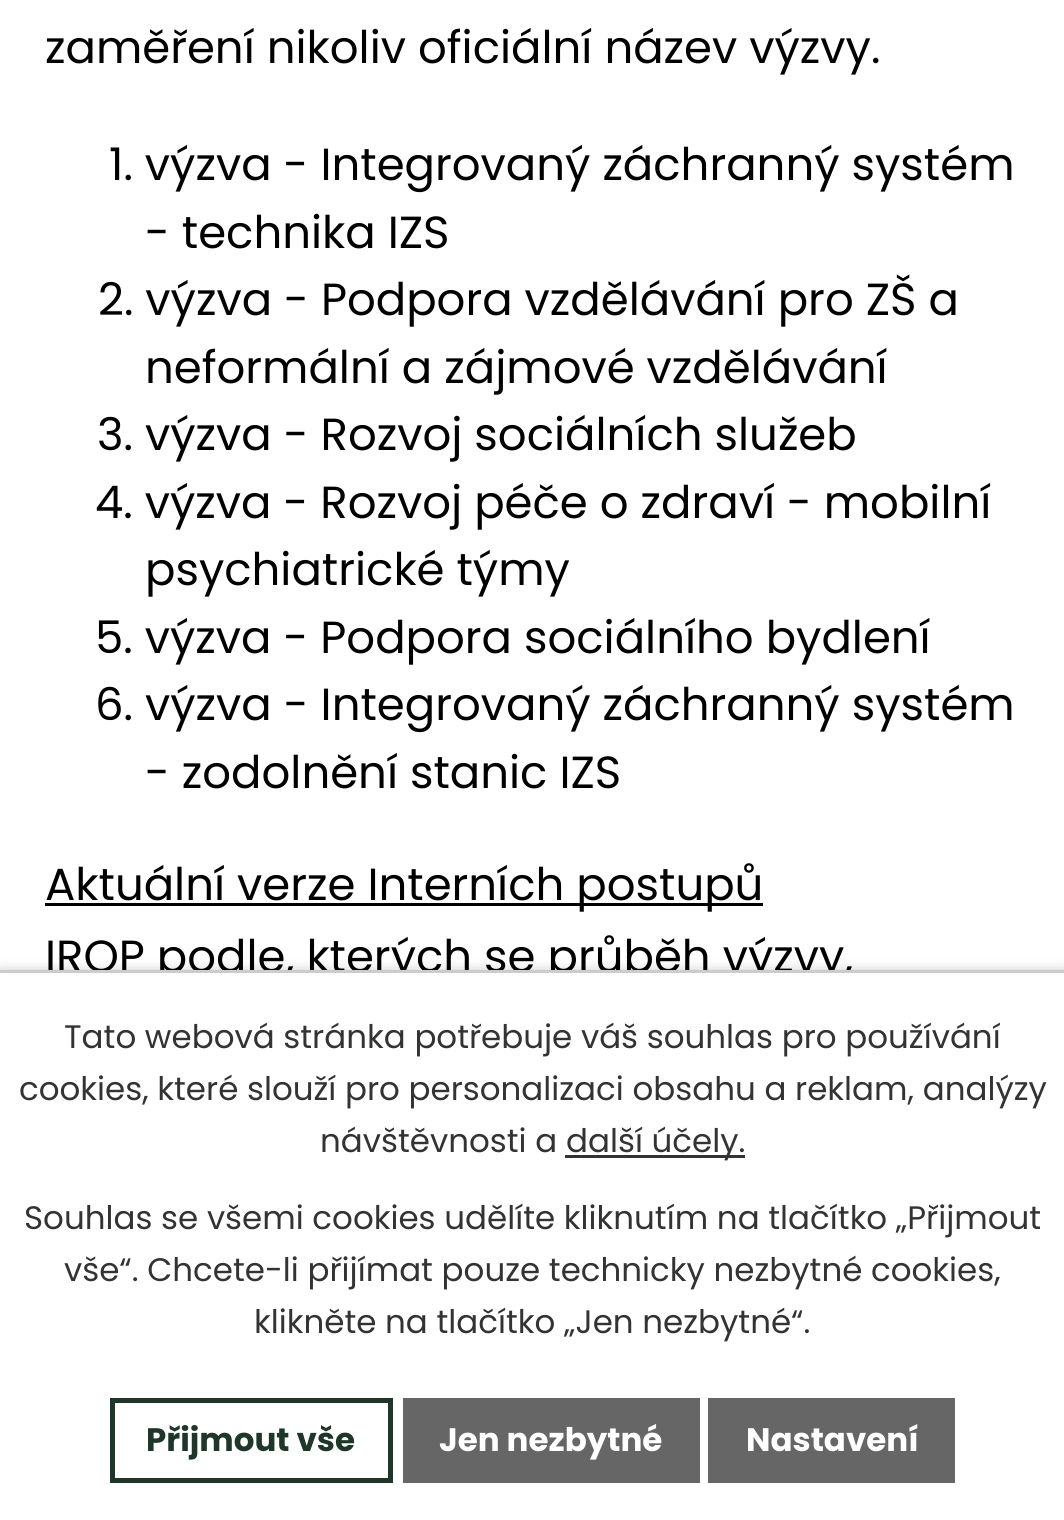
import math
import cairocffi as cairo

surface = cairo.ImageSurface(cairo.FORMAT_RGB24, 1064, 1520)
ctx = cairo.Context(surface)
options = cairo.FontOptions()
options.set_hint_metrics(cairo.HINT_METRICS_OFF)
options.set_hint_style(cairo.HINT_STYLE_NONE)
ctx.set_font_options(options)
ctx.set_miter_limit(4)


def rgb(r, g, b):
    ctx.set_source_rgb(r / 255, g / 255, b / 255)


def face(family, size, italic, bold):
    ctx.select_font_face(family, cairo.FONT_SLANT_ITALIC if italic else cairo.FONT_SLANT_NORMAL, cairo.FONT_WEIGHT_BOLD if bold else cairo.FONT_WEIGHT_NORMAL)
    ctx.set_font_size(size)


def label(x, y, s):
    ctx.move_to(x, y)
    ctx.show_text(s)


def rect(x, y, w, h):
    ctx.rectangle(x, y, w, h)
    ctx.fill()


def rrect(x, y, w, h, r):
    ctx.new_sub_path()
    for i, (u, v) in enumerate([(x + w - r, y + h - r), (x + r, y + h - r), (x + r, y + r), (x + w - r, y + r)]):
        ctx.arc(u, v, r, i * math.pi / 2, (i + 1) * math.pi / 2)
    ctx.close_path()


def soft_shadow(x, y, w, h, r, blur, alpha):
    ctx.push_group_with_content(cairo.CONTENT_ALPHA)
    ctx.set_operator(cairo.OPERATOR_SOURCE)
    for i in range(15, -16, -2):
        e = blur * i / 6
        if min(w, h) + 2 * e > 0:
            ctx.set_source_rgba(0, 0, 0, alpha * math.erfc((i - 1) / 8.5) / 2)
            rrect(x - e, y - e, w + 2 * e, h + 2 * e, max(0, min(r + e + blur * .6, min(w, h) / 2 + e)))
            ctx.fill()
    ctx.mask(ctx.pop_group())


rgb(255, 255, 255)
ctx.paint()
face('Poppins', 45, 0, 0)
rgb(0, 0, 0)
label(45, 63, 'zaměření nikoliv oficiální název výzvy.')
label(109, 180, '1. výzva - Integrovaný záchranný systém')
label(145, 248, '- technika IZS')
label(98, 315, '2. výzva - Podpora vzdělávání pro ZŠ a')
label(145, 383, 'neformální a zájmové vzdělávání')
label(97, 450, '3. výzva - Rozvoj sociálních služeb')
label(95, 518, '4. výzva - Rozvoj péče o zdraví - mobilní')
label(145, 585, 'psychiatrické týmy')
label(95, 653, '5. výzva - Podpora sociálního bydlení')
label(95, 720, '6. výzva - Integrovaný záchranný systém')
label(145, 788, '- zodolnění stanic IZS')
rect(45, 903, 718, 3)
label(45, 900, 'Aktuální verze Interních postupů')
label(45, 972, 'IROP podle, kterých se průběh výzvy,')
rgb(0, 0, 0)
soft_shadow(0, 970, 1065, 550, 0, 6, 0.2)
rgb(255, 255, 255)
rect(0, 973, 1064, 547)
rgb(204, 204, 204)
rect(0, 970, 1064, 3)
face('Poppins', 32.5, 0, 0)
rgb(51, 51, 51)
label(64, 1048, 'Tato webová stránka potřebuje váš souhlas pro používání')
label(19, 1100, 'cookies, které slouží pro personalizaci obsahu a reklam, analýzy')
label(320, 1152, 'návštěvnosti a')
rect(565, 1155, 180, 3)
label(566, 1152, 'další účely.')
label(24, 1229, 'Souhlas se všemi cookies udělíte kliknutím na tlačítko „Přijmout')
label(64, 1281, 'vše“. Chcete-li přijímat pouze technicky nezbytné cookies,')
label(254, 1333, 'klikněte na tlačítko „Jen nezbytné“.')
ctx.rectangle(112.5, 1400.5, 278, 80)
rgb(30, 55, 41)
ctx.set_line_width(5)
ctx.stroke()
face('Poppins', 32.5, 0, 1)
label(146, 1451, 'Přijmout vše')
rgb(102, 102, 102)
rect(403, 1398, 297, 85)
rgb(255, 255, 255)
label(439, 1451, 'Jen nezbytné')
rgb(102, 102, 102)
rect(708, 1398, 247, 85)
rgb(255, 255, 255)
label(746, 1451, 'Nastavení')
surface.write_to_png('render.png')
